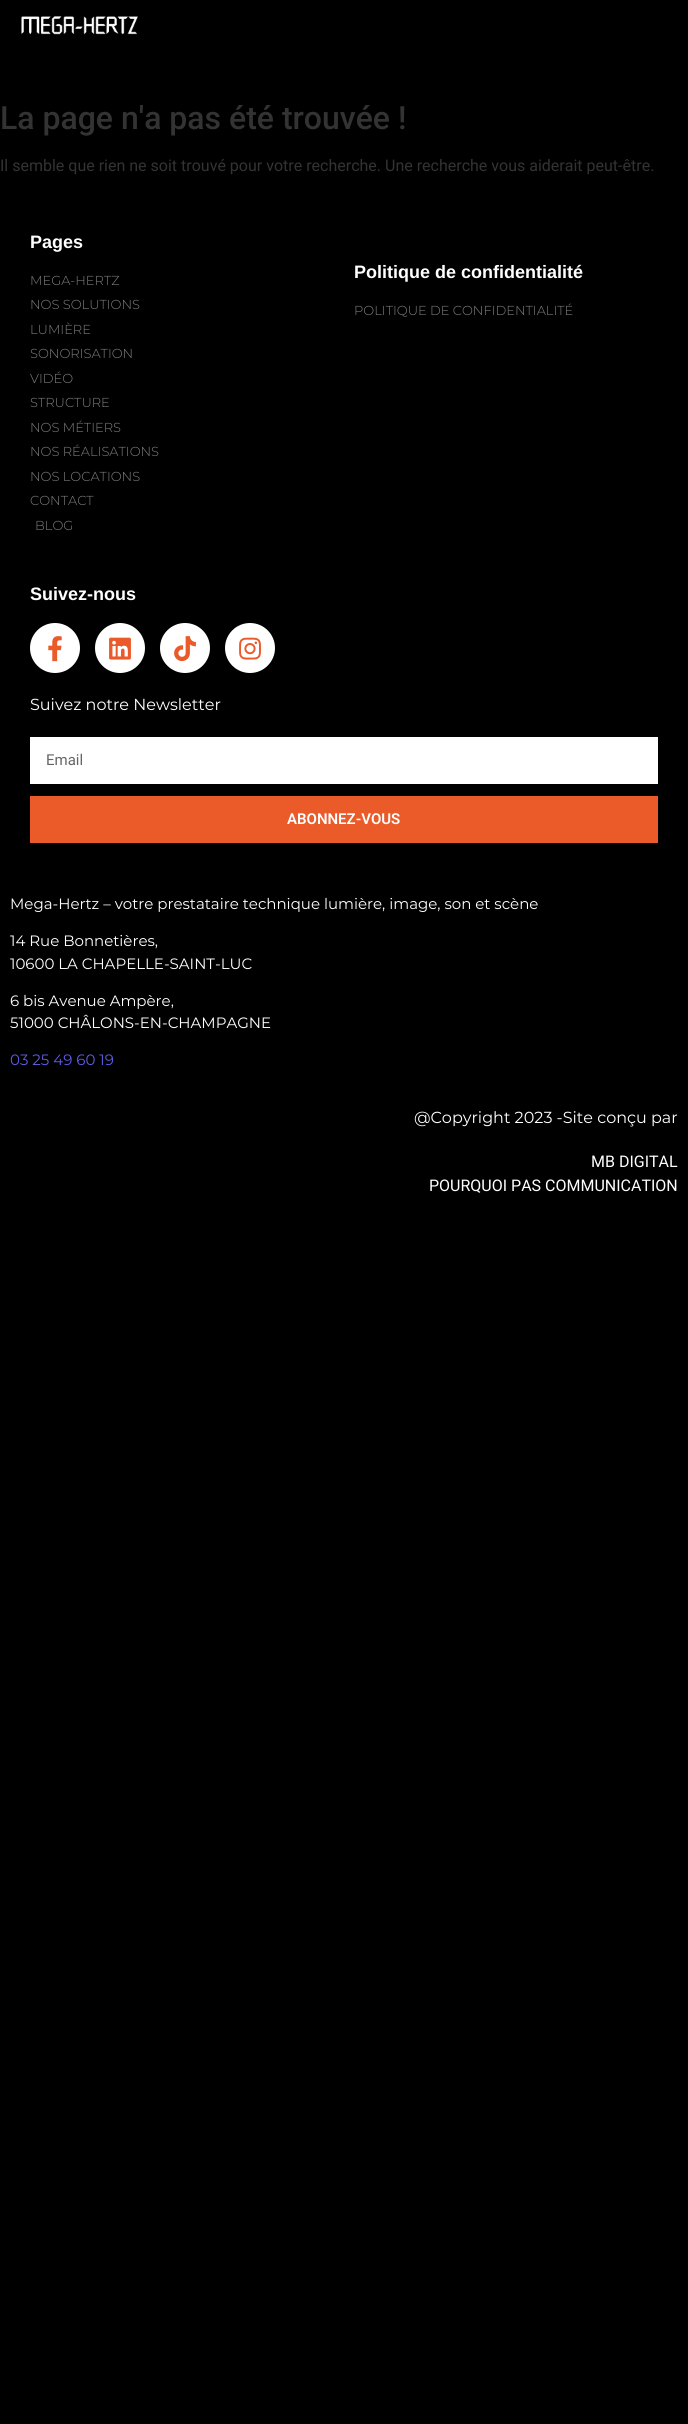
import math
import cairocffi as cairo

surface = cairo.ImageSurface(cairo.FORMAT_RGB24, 688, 2424)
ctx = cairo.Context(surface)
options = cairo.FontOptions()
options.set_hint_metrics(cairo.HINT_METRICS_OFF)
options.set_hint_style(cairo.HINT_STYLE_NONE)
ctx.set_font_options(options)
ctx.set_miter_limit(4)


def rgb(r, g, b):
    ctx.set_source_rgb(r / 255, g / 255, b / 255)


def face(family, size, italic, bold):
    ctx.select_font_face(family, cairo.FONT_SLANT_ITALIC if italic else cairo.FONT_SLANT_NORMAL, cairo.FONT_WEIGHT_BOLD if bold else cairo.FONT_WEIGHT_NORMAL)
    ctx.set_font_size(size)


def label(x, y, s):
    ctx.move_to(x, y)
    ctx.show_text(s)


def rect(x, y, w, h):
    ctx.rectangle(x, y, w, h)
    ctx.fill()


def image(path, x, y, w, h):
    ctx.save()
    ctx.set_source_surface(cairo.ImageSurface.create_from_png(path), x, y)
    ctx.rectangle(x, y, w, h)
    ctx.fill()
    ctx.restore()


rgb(0, 0, 0)
ctx.paint()
image('image0.png', 21, 16, 117, 19)
face('Roboto Medium', 32, 0, 0)
rgb(51, 51, 51)
label(0, 129, 'La page n\'a pas été trouvée !')
face('Roboto', 16, 0, 0)
label(0, 171, 'Il semble que rien ne soit trouvé pour votre recherche. Une recherche vous aiderait peut-être.')
face('Liberation Sans', 18, 0, 1)
rgb(255, 255, 255)
label(30, 248, 'Pages')
face('Montserrat Light', 13, 0, 0)
rgb(128, 128, 128)
label(30, 285, 'MEGA-HERTZ')
label(30, 309, 'NOS SOLUTIONS')
label(30, 334, 'LUMIÈRE')
label(30, 358, 'SONORISATION')
label(30, 383, 'VIDÉO')
label(30, 407, 'STRUCTURE')
label(30, 432, 'NOS MÉTIERS')
label(30, 456, 'NOS RÉALISATIONS')
label(30, 481, 'NOS LOCATIONS')
label(30, 505, 'CONTACT')
label(35, 530, 'BLOG')
face('Liberation Sans', 18, 0, 1)
rgb(255, 255, 255)
label(354, 278, 'Politique de confidentialité')
face('Montserrat Light', 13, 0, 0)
rgb(128, 128, 128)
label(354, 315, 'POLITIQUE DE CONFIDENTIALITÉ')
face('Liberation Sans', 18, 0, 1)
rgb(255, 255, 255)
label(30, 600, 'Suivez-nous')
ctx.new_path()
ctx.arc(55, 648, 25, 0, 2 * math.pi)
ctx.fill()
image('image1.png', 48, 636, 14, 26)
ctx.arc(120, 648, 25, 0, 2 * math.pi)
ctx.fill()
image('image2.png', 109, 637, 22, 23)
ctx.arc(185, 648, 25, 0, 2 * math.pi)
ctx.fill()
image('image3.png', 174, 636, 22, 26)
ctx.arc(250, 648, 25, 0, 2 * math.pi)
ctx.fill()
image('image4.png', 239, 637, 22, 23)
face('Montserrat', 16, 0, 0)
label(30, 710, 'Suivez notre Newsletter')
rect(30, 737, 628, 47)
face('Roboto', 15, 0, 0)
rgb(102, 102, 102)
label(46, 765, 'Email')
rgb(235, 91, 42)
rect(30, 796, 628, 47)
face('Roboto SemiBold', 15, 0, 0)
rgb(255, 255, 255)
label(287, 824, 'ABONNEZ-VOUS')
face('Montserrat', 15, 0, 0)
label(10, 909, 'Mega-Hertz – votre prestataire technique lumière, image, son et scène')
label(10, 946, '14 Rue Bonnetières,')
label(10, 969, '10600 LA CHAPELLE-SAINT-LUC')
label(10, 1006, '6 bis Avenue Ampère,')
label(10, 1028, '51000 CHÂLONS-EN-CHAMPAGNE')
rgb(96, 91, 229)
label(10, 1065, '03 25 49 60 19')
face('Montserrat', 16, 0, 0)
rgb(255, 255, 255)
label(414, 1123, '@Copyright 2023 -Site conçu par')
face('Roboto', 16, 0, 0)
label(591, 1167, 'MB DIGITAL')
label(429, 1191, 'POURQUOI PAS COMMUNICATION')
surface.write_to_png('render.png')
